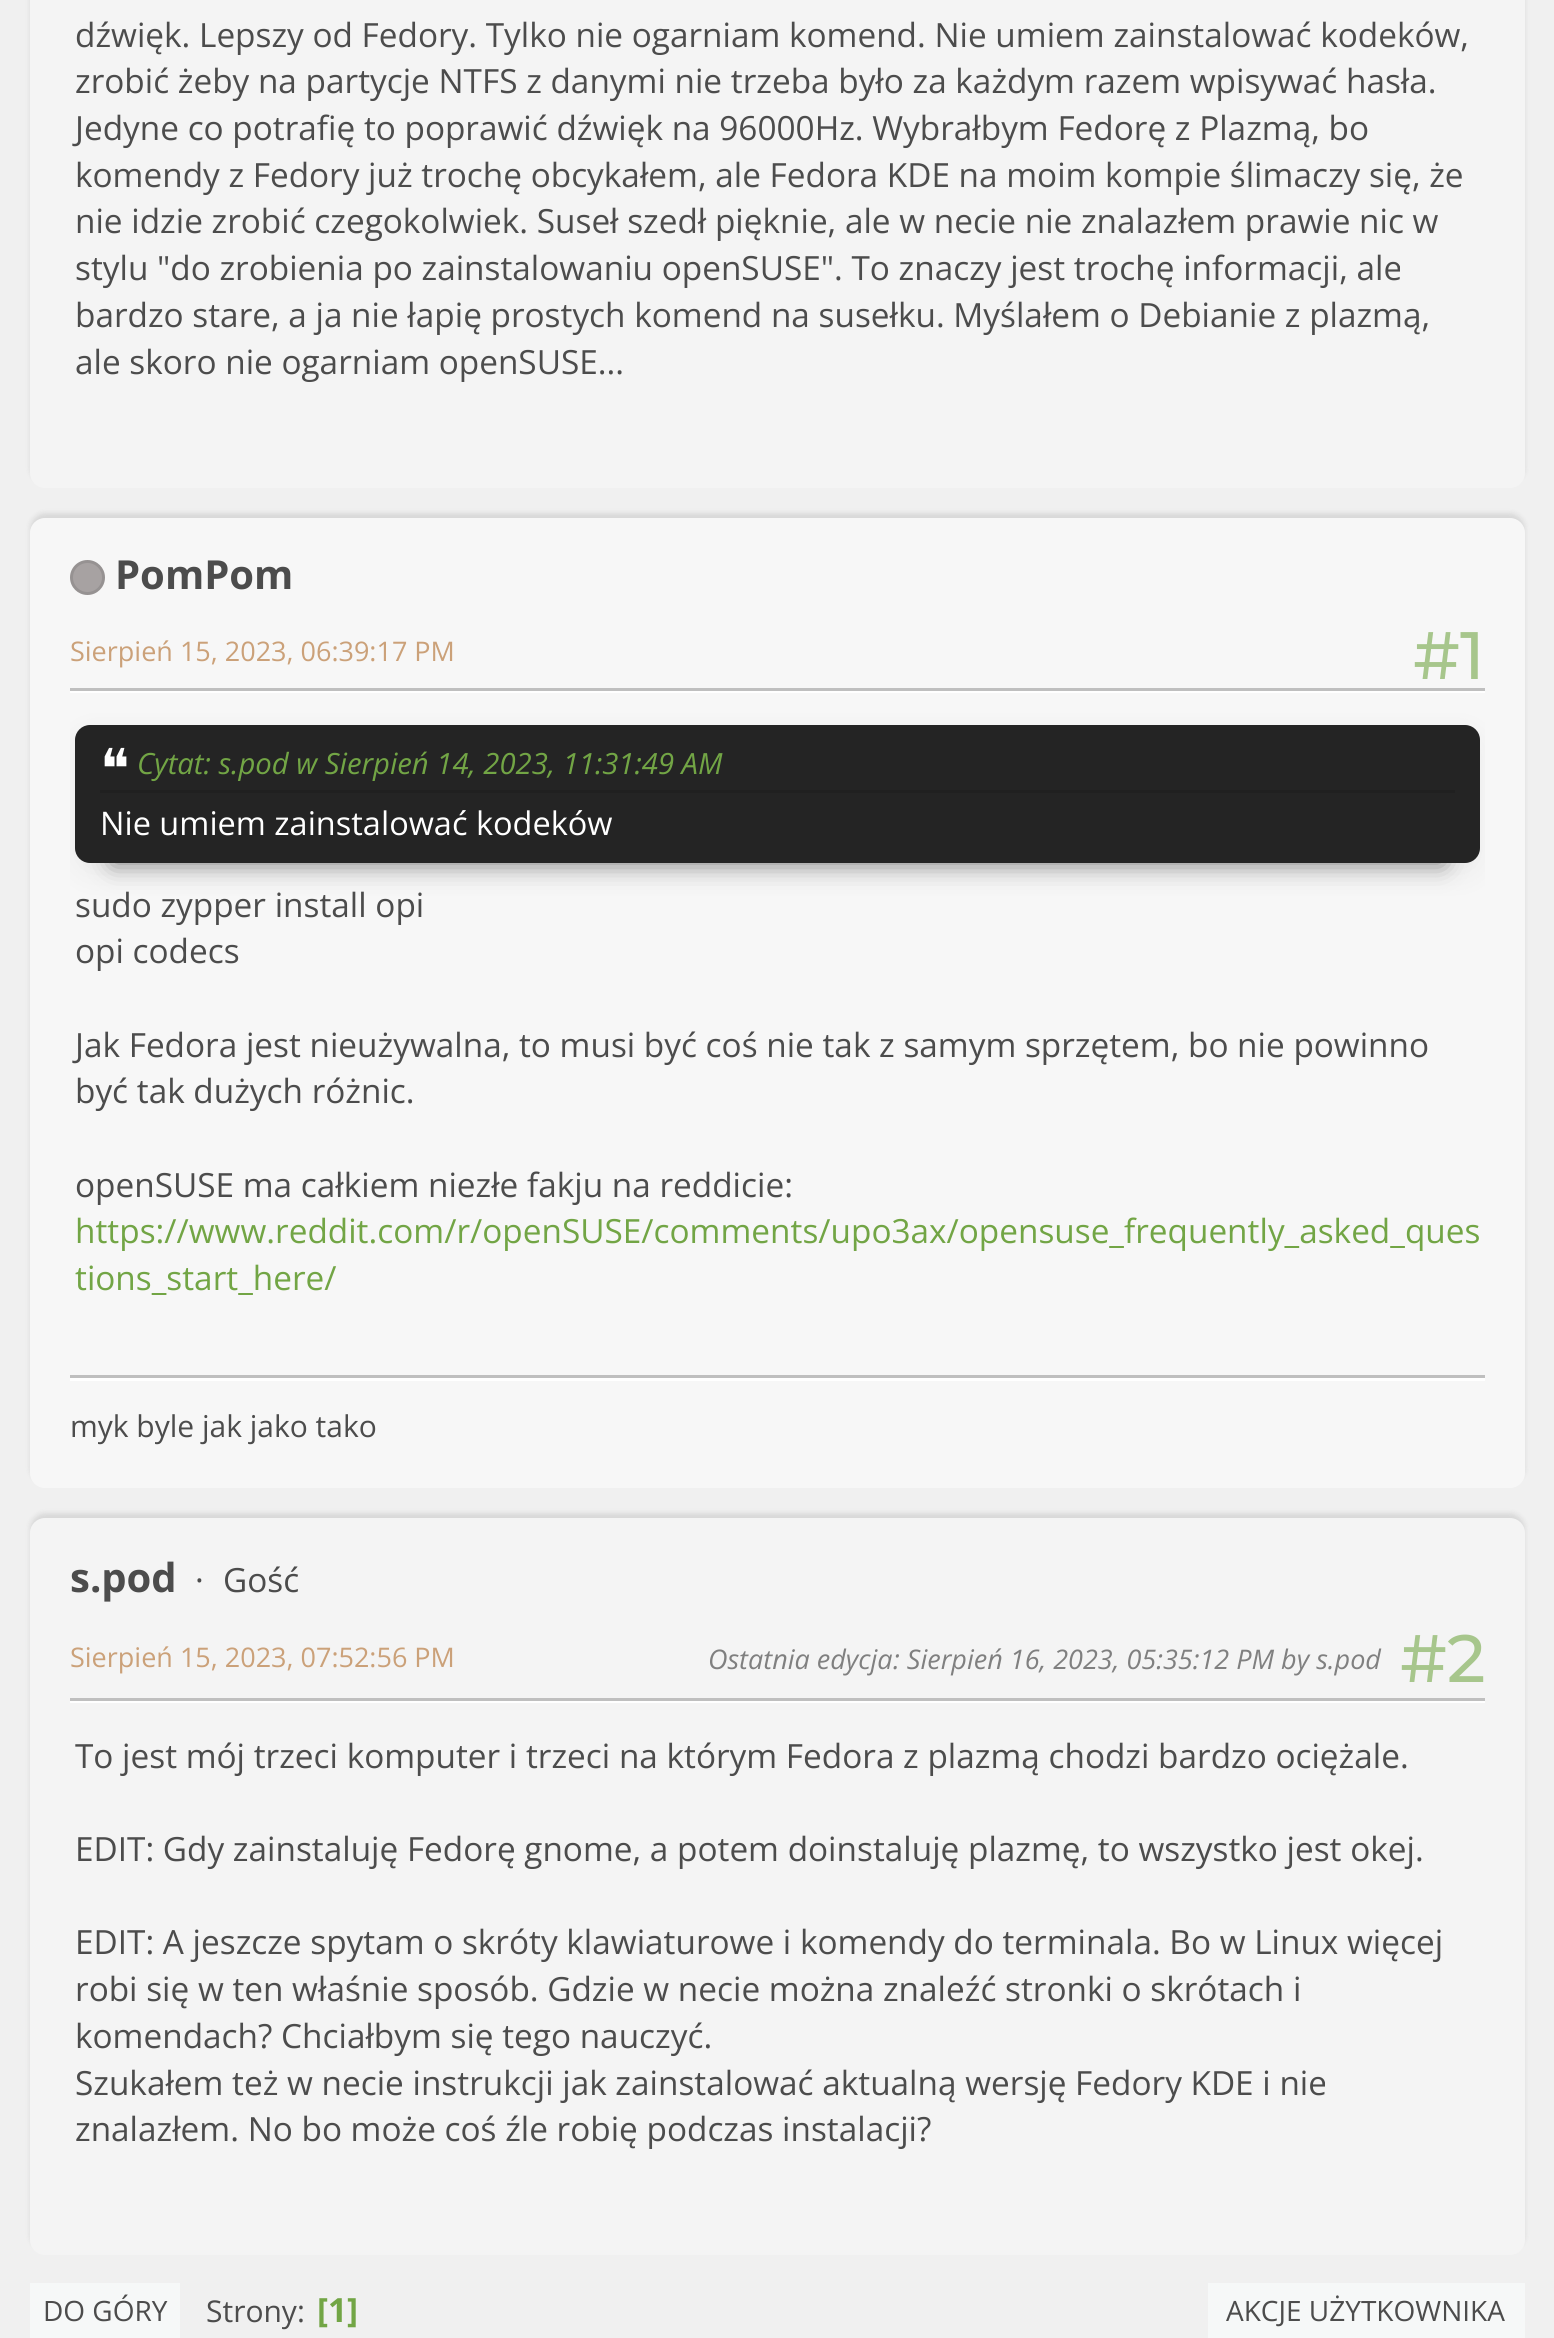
import math
import cairocffi as cairo

surface = cairo.ImageSurface(cairo.FORMAT_RGB24, 1554, 2338)
ctx = cairo.Context(surface)
options = cairo.FontOptions()
options.set_hint_metrics(cairo.HINT_METRICS_OFF)
options.set_hint_style(cairo.HINT_STYLE_NONE)
ctx.set_font_options(options)
ctx.set_miter_limit(4)


def rgb(r, g, b):
    ctx.set_source_rgb(r / 255, g / 255, b / 255)


def face(family, size, italic, bold):
    ctx.select_font_face(family, cairo.FONT_SLANT_ITALIC if italic else cairo.FONT_SLANT_NORMAL, cairo.FONT_WEIGHT_BOLD if bold else cairo.FONT_WEIGHT_NORMAL)
    ctx.set_font_size(size)


def label(x, y, s):
    ctx.move_to(x, y)
    ctx.show_text(s)


def rect(x, y, w, h):
    ctx.rectangle(x, y, w, h)
    ctx.fill()


def rrect(x, y, w, h, r):
    ctx.new_sub_path()
    for i, (u, v) in enumerate([(x + w - r, y + h - r), (x + r, y + h - r), (x + r, y + r), (x + w - r, y + r)]):
        ctx.arc(u, v, r, i * math.pi / 2, (i + 1) * math.pi / 2)
    ctx.close_path()


def soft_shadow(x, y, w, h, r, blur, alpha):
    ctx.push_group_with_content(cairo.CONTENT_ALPHA)
    ctx.set_operator(cairo.OPERATOR_SOURCE)
    for i in range(15, -16, -2):
        e = blur * i / 6
        if min(w, h) + 2 * e > 0:
            ctx.set_source_rgba(0, 0, 0, alpha * math.erfc((i - 1) / 8.5) / 2)
            rrect(x - e, y - e, w + 2 * e, h + 2 * e, max(0, min(r + e + blur * .6, min(w, h) / 2 + e)))
            ctx.fill()
    ctx.mask(ctx.pop_group())


rgb(240, 240, 240)
ctx.paint()
rgb(0, 0, 0)
soft_shadow(30, -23, 1495, 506, 15, 2.5, 0.1)
rgb(244, 244, 244)
rrect(30, -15, 1495, 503, 15)
ctx.fill()
face('Open Sans', 33.35, 0, 0)
rgb(76, 76, 76)
label(75, 47, 'dźwięk. Lepszy od Fedory. Tylko nie ogarniam komend. Nie umiem zainstalować kodeków,')
label(75, 93, 'zrobić żeby na partycje NTFS z danymi nie trzeba było za każdym razem wpisywać hasła.')
label(75, 140, 'Jedyne co potrafię to poprawić dźwięk na 96000Hz. Wybrałbym Fedorę z Plazmą, bo')
label(75, 187, 'komendy z Fedory już trochę obcykałem, ale Fedora KDE na moim kompie ślimaczy się, że')
label(75, 233, 'nie idzie zrobić czegokolwiek. Suseł szedł pięknie, ale w necie nie znalazłem prawie nic w')
label(75, 280, 'stylu "do zrobienia po zainstalowaniu openSUSE". To znaczy jest trochę informacji, ale')
label(75, 327, 'bardzo stare, a ja nie łapię prostych komend na susełku. Myślałem o Debianie z plazmą,')
label(75, 374, 'ale skoro nie ogarniam openSUSE...')
rgb(0, 0, 0)
soft_shadow(30, 513, 1495, 970, 15, 2.5, 0.1)
rgb(247, 247, 247)
rrect(30, 518, 1495, 970, 15)
ctx.fill()
rgb(167, 162, 162)
ctx.arc(87.5, 577.5, 16, 0, 2 * math.pi)
ctx.fill_preserve()
rgb(150, 146, 146)
ctx.set_line_width(3)
ctx.stroke()
face('Open Sans', 40, 0, 1)
rgb(76, 76, 76)
label(115, 589, 'PomPom')
face('Open Sans', 27, 0, 0)
rgb(203, 161, 121)
label(70, 661, 'Sierpień 15, 2023, 06:39:17 PM')
face('Montserrat Medium', 67, 0, 0)
rgb(167, 198, 140)
label(1413, 679, '#1')
rgb(255, 255, 255)
rect(70, 691, 1415, 2)
rgb(191, 191, 191)
rect(70, 688, 1415, 3)
rgb(1, 0, 0)
soft_shadow(113, 800, 1330, 63, 0, 12.5, 0.5)
ctx.save()
ctx.rectangle(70, 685, 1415, 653)
ctx.clip()
rgb(0, 0, 0)
soft_shadow(75, 735, 1405, 138, 15, 15, 0.05)
ctx.restore()
rgb(36, 36, 36)
rrect(75, 725, 1405, 138, 15)
ctx.fill()
rgb(32, 32, 32)
rect(100, 790, 1355, 3)
face('DejaVu Sans', 55, 0, 0)
rgb(255, 255, 255)
label(100, 788, '❝')
face('Open Sans', 29.25, 1, 0)
rgb(114, 165, 69)
label(137, 774, 'Cytat: s.pod w Sierpień 14, 2023, 11:31:49 AM')
face('Open Sans', 32.5, 0, 0)
rgb(255, 255, 255)
label(100, 835, 'Nie umiem zainstalować kodeków')
face('Open Sans', 33.35, 0, 0)
rgb(76, 76, 76)
label(75, 917, 'sudo zypper install opi')
label(75, 963, 'opi codecs')
label(75, 1057, 'Jak Fedora jest nieużywalna, to musi być coś nie tak z samym sprzętem, bo nie powinno')
label(75, 1103, 'być tak dużych różnic.')
label(75, 1197, 'openSUSE ma całkiem niezłe fakju na reddicie:')
rgb(114, 165, 69)
label(75, 1243, 'https://www.reddit.com/r/openSUSE/comments/upo3ax/opensuse_frequently_asked_ques')
label(75, 1290, 'tions_start_here/')
rgb(255, 255, 255)
rect(70, 1378, 1415, 3)
rgb(191, 191, 191)
rect(70, 1375, 1415, 3)
face('Open Sans', 30, 0, 0)
rgb(76, 76, 76)
label(70, 1437, 'myk byle jak jako tako')
rgb(0, 0, 0)
soft_shadow(30, 1513, 1495, 737, 15, 2.5, 0.1)
rgb(244, 244, 244)
rrect(30, 1518, 1495, 737, 15)
ctx.fill()
face('Open Sans', 40, 0, 1)
rgb(76, 76, 76)
label(70, 1592, 's.pod')
face('Open Sans', 33.35, 0, 0)
label(195, 1592, '·')
label(223, 1592, 'Gość')
face('Open Sans', 27, 0, 0)
rgb(203, 161, 121)
label(70, 1667, 'Sierpień 15, 2023, 07:52:56 PM')
face('Open Sans', 27, 1, 0)
rgb(128, 128, 128)
label(708, 1669, 'Ostatnia edycja')
label(893, 1669, ': Sierpień 16, 2023, 05:35:12 PM by s.pod')
face('Montserrat Medium', 67, 0, 0)
rgb(167, 198, 140)
label(1400, 1682, '#2')
rgb(255, 255, 255)
rect(70, 1701, 1415, 2)
rgb(191, 191, 191)
rect(70, 1698, 1415, 3)
face('Open Sans', 33.35, 0, 0)
rgb(76, 76, 76)
label(75, 1768, 'To jest mój trzeci komputer i trzeci na którym Fedora z plazmą chodzi bardzo ociężale.')
label(75, 1861, 'EDIT: Gdy zainstaluję Fedorę gnome, a potem doinstaluję plazmę, to wszystko jest okej.')
label(75, 1954, 'EDIT: A jeszcze spytam o skróty klawiaturowe i komendy do terminala. Bo w Linux więcej')
label(75, 2001, 'robi się w ten właśnie sposób. Gdzie w necie można znaleźć stronki o skrótach i')
label(75, 2048, 'komendach? Chciałbym się tego nauczyć.')
label(75, 2095, 'Szukałem też w necie instrukcji jak zainstalować aktualną wersję Fedory KDE i nie')
label(75, 2141, 'znalazłem. No bo może coś źle robię podczas instalacji?')
rgb(246, 248, 248)
rect(30, 2283, 150, 55)
face('Open Sans', 28, 0, 0)
rgb(76, 76, 76)
label(43, 2321, 'DO GÓRY')
face('Open Sans', 30, 0, 0)
label(206, 2322, 'Strony:')
face('Open Sans', 33.35, 0, 1)
rgb(114, 165, 69)
label(317, 2322, '[1]')
rgb(246, 248, 248)
rect(1208, 2283, 317, 55)
face('Open Sans', 28, 0, 0)
rgb(76, 76, 76)
label(1226, 2321, 'AKCJE UŻYTKOWNIKA')
surface.write_to_png('render.png')
